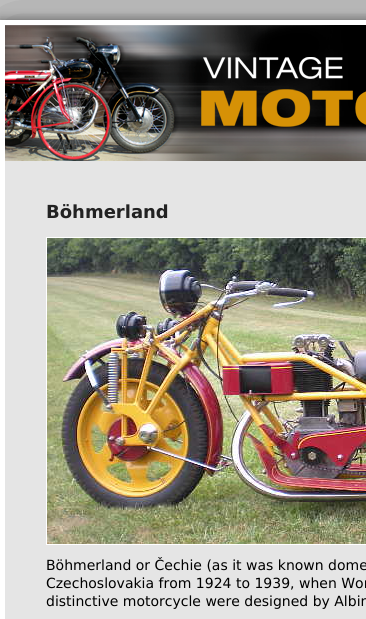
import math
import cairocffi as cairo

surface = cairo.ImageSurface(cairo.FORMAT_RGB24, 366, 619)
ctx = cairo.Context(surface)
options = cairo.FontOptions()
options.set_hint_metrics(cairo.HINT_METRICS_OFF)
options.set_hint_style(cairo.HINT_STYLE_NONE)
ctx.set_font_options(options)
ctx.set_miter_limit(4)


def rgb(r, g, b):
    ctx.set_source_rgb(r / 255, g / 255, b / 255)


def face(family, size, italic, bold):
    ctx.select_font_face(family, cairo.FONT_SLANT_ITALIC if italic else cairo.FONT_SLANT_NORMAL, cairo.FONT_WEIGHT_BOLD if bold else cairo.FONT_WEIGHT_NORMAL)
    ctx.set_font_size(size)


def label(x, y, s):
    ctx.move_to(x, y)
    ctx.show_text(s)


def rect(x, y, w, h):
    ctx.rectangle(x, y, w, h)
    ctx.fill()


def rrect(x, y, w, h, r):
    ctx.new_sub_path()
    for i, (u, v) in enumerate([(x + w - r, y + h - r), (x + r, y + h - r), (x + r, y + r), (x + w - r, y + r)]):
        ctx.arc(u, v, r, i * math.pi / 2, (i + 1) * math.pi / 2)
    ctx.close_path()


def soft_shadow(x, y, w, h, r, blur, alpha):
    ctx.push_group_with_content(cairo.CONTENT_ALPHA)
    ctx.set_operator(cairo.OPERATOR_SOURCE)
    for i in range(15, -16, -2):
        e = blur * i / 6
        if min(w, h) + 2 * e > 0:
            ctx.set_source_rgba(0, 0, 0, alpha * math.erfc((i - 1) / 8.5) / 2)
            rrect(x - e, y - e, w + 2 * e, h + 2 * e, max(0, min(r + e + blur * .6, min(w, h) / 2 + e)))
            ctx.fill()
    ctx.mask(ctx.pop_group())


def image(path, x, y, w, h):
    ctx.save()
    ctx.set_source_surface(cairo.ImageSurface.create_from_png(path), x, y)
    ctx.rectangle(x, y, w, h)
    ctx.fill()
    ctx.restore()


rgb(204, 204, 204)
ctx.paint()
rgb(0, 0, 0)
soft_shadow(0, 20, 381, 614, 0, 5, 0.45)
soft_shadow(0, 20, 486, 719, 0, 40, 0.3)
rgb(229, 229, 229)
rect(5, 161, 361, 458)
ctx.rectangle(2.5, 22.5, 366, 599)
rgb(255, 255, 255)
ctx.set_line_width(5)
ctx.stroke()
image('image0.png', 5, 25, 361, 136)
face('DejaVu Sans', 18, 0, 1)
rgb(34, 34, 34)
label(46, 218, 'Böhmerland')
ctx.rectangle(46.5, 237.5, 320, 307)
rgb(255, 255, 255)
ctx.set_line_width(1)
ctx.stroke()
image('image1.png', 47, 238, 319, 306)
face('DejaVu Sans', 14, 0, 0)
rgb(0, 0, 0)
label(46, 570, 'Böhmerland or Čechie (as it was known dome')
label(46, 588, 'Czechoslovakia from 1924 to 1939, when Wor')
label(46, 606, 'distinctive motorcycle were designed by Albin')
surface.write_to_png('render.png')
